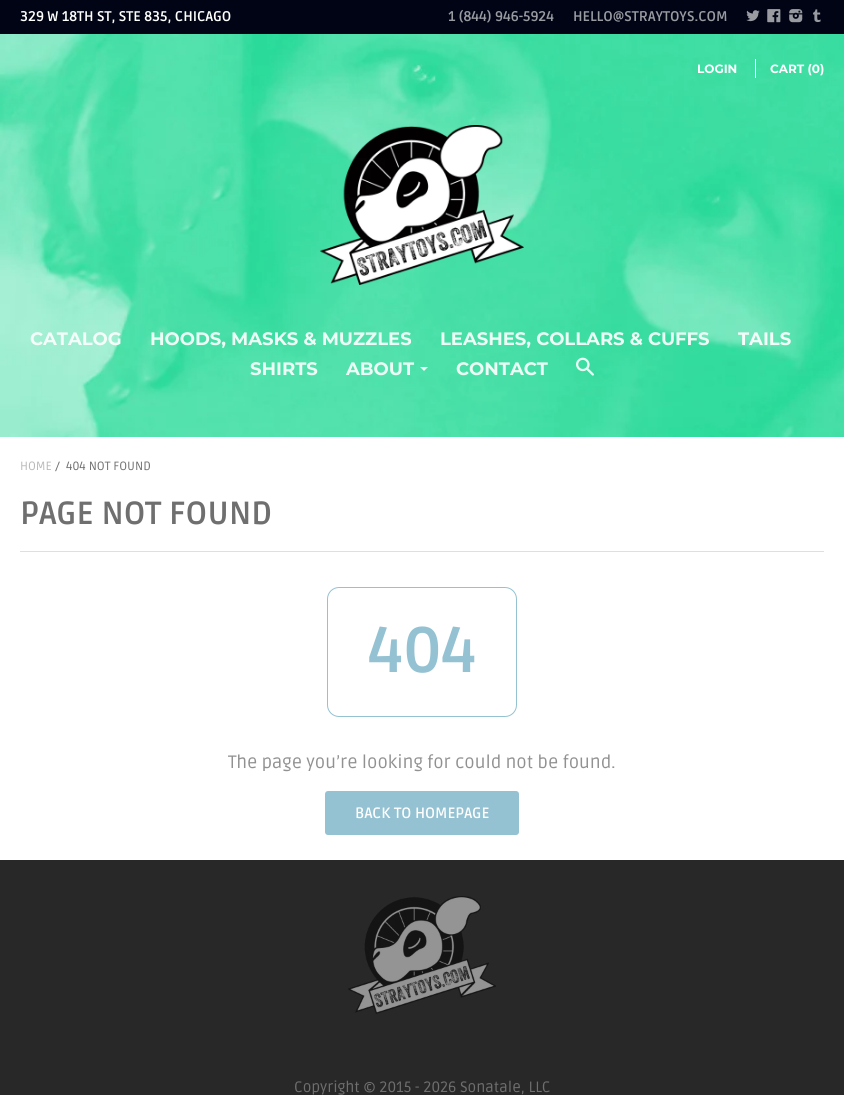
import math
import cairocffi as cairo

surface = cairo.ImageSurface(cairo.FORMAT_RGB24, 844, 1095)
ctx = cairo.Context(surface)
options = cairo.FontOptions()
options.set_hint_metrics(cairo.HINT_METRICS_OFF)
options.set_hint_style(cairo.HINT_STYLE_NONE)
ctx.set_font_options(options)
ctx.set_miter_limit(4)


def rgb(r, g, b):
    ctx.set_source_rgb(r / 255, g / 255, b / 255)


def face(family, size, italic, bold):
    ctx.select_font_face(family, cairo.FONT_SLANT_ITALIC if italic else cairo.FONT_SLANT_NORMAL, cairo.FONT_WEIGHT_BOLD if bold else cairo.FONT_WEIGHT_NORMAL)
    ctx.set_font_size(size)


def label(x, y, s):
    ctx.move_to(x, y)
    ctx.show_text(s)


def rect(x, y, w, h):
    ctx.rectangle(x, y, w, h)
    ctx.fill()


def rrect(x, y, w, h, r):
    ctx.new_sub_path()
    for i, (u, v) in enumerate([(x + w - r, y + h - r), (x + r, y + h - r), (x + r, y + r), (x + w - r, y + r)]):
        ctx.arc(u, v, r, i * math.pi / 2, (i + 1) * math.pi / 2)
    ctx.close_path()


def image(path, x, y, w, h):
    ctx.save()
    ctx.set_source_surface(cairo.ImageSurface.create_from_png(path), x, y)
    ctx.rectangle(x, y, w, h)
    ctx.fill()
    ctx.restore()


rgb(255, 255, 255)
ctx.paint()
rgb(0, 4, 20)
rect(0, 0, 844, 34)
face('Ruda', 14, 0, 1)
rgb(255, 255, 255)
label(20, 21, '329 W 18TH ST, STE 835, CHICAGO')
rgb(153, 155, 161)
label(448, 21, '1 (844) 946-5924')
label(573, 21, 'HELLO@STRAYTOYS.COM')
image('image0.png', 746, 10, 14, 12)
image('image1.png', 767, 9, 14, 14)
image('image2.png', 789, 9, 14, 14)
image('image3.png', 813, 9, 8, 14)
image('image4.png', 0, 34, 844, 403)
face('Montserrat', 12, 0, 1)
rgb(255, 255, 255)
label(697, 73, 'LOGIN')
rect(755, 59, 1, 19)
label(770, 73, 'CART (0)')
image('image5.png', 320, 125, 204, 160)
face('Montserrat', 18, 0, 1)
rgb(245, 253, 250)
label(30, 345, 'CATALOG')
rgb(237, 252, 246)
label(150, 345, 'HOODS, MASKS & MUZZLES')
label(440, 345, 'LEASHES, COLLARS & CUFFS')
rgb(245, 253, 250)
label(738, 345, 'TAILS')
rgb(237, 252, 246)
label(250, 375, 'SHIRTS')
label(346, 375, 'ABOUT')
ctx.new_path()
ctx.move_to(420, 367)
ctx.line_to(428, 367)
ctx.line_to(424, 371)
ctx.close_path()
ctx.fill()
label(456, 375, 'CONTACT')
image('image6.png', 576, 357, 18, 19)
face('Ruda', 12, 0, 0)
rgb(184, 184, 184)
label(20, 470, 'HOME')
rgb(111, 111, 111)
label(55, 470, '/')
label(66, 470, '404 NOT FOUND')
rgb(223, 223, 223)
rect(20, 551, 804, 1)
face('Ruda', 32, 0, 1)
rgb(111, 111, 111)
label(20, 524, 'PAGE NOT FOUND')
rrect(327.5, 587.5, 189, 129, 11.5)
rgb(148, 194, 210)
ctx.set_line_width(1)
ctx.stroke()
face('Ruda', 64, 0, 1)
label(368, 672, '404')
face('Ruda', 18, 0, 0)
rgb(145, 145, 145)
label(228, 768, 'The page you’re looking for could not be found.')
rgb(148, 194, 210)
rrect(325, 791, 194, 44, 3)
ctx.fill()
face('Ruda SemiBold', 15, 0, 0)
rgb(255, 255, 255)
label(355, 818, 'BACK TO HOMEPAGE')
rgb(40, 40, 40)
rect(0, 860, 844, 235)
image('image7.png', 348, 896, 148, 118)
face('Ruda', 15, 0, 0)
rgb(111, 111, 111)
label(294, 1092, 'Copyright © 2015 - 2026 Sonatale, LLC')
surface.write_to_png('render.png')
